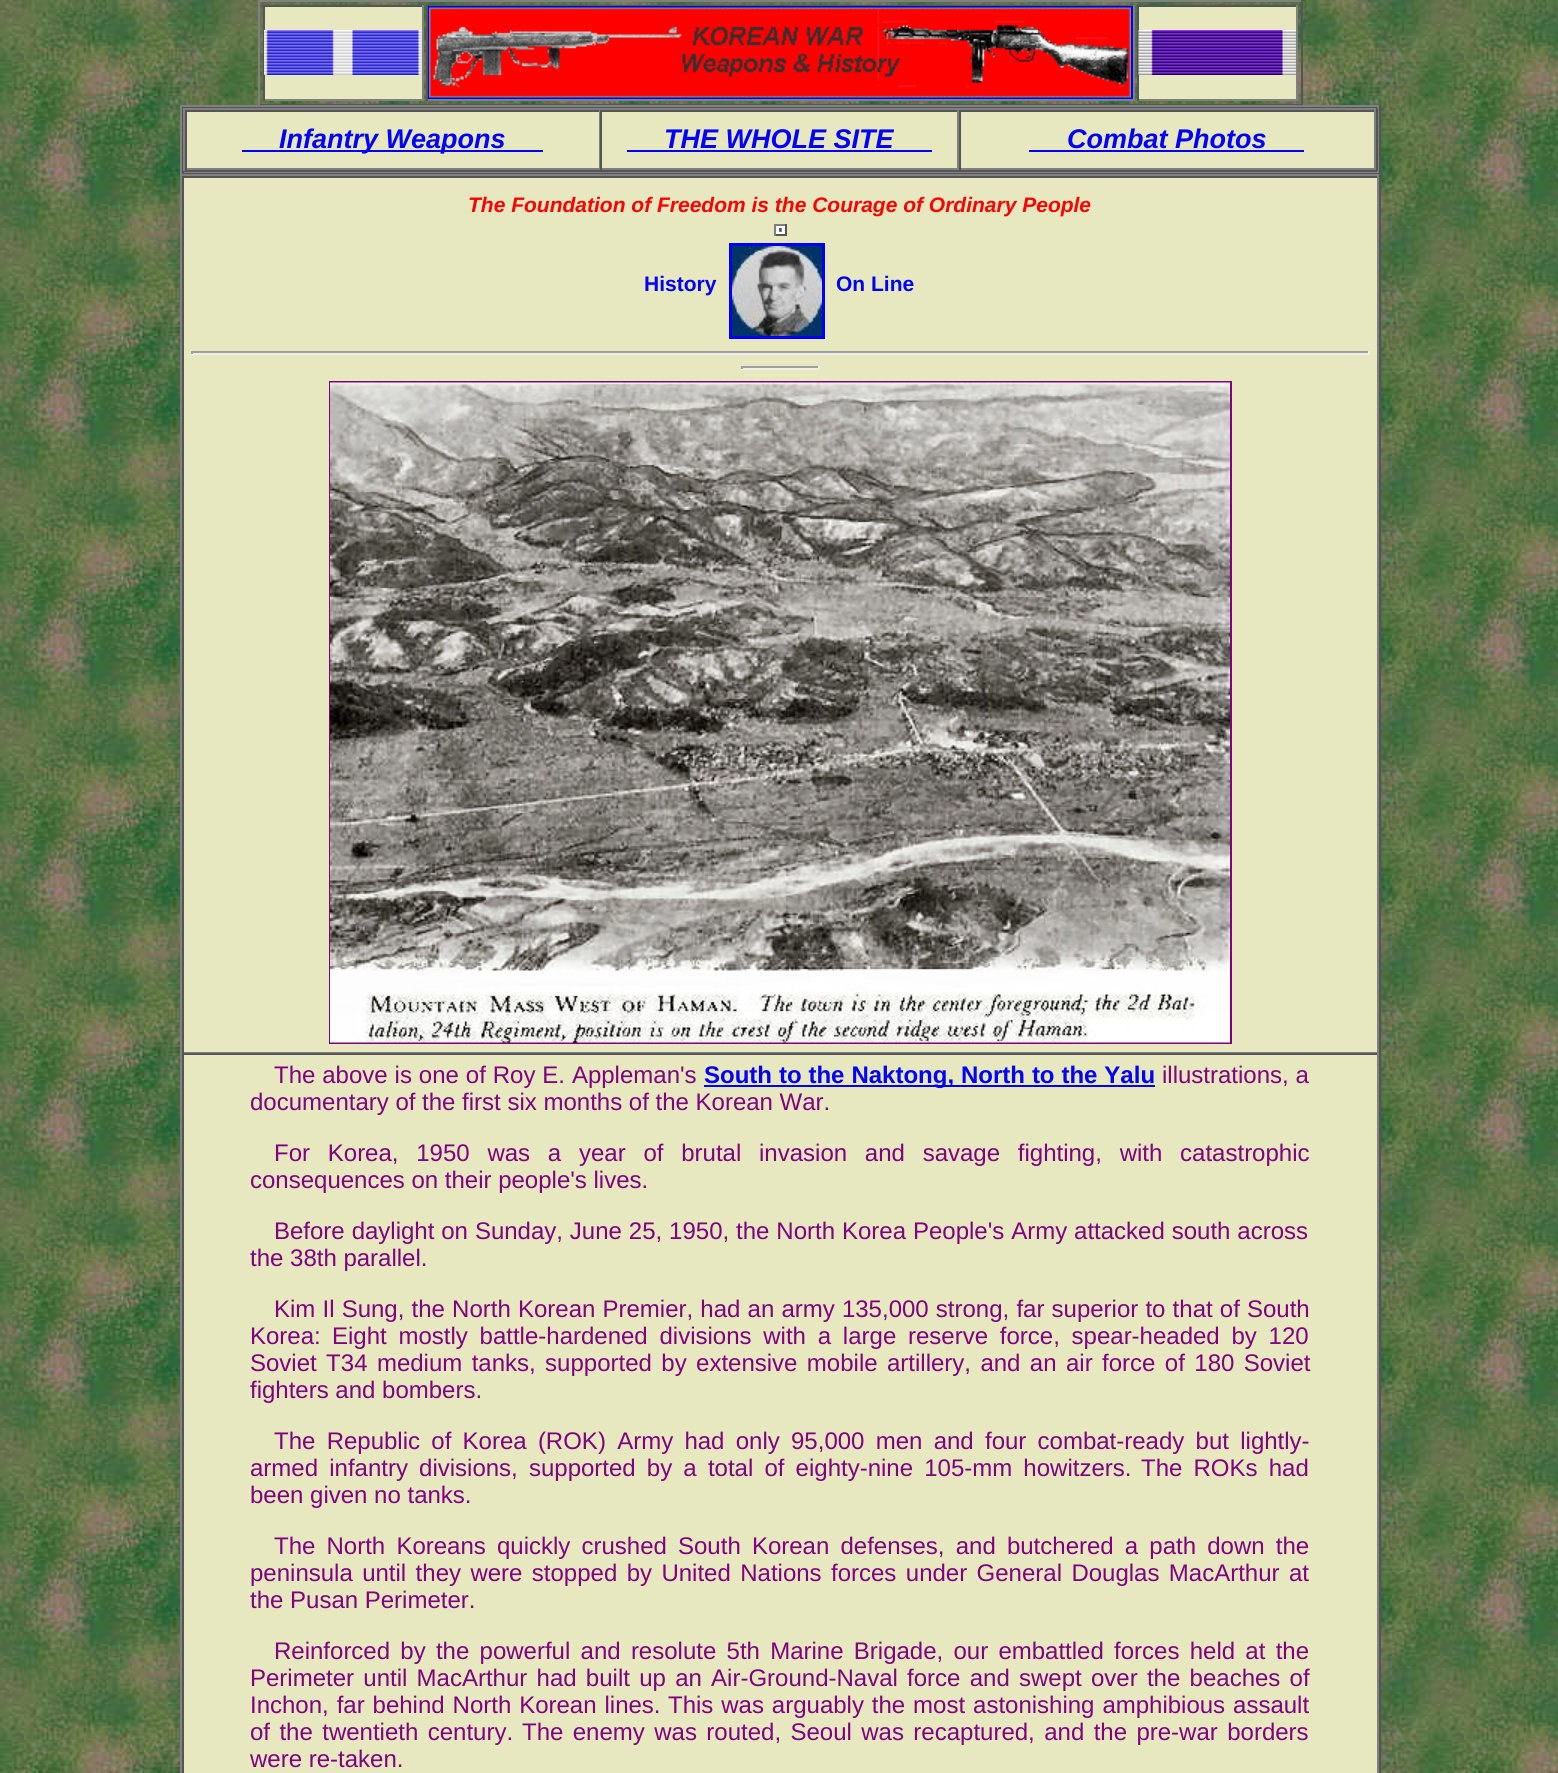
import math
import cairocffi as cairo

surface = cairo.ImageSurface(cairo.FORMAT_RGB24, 1558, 1773)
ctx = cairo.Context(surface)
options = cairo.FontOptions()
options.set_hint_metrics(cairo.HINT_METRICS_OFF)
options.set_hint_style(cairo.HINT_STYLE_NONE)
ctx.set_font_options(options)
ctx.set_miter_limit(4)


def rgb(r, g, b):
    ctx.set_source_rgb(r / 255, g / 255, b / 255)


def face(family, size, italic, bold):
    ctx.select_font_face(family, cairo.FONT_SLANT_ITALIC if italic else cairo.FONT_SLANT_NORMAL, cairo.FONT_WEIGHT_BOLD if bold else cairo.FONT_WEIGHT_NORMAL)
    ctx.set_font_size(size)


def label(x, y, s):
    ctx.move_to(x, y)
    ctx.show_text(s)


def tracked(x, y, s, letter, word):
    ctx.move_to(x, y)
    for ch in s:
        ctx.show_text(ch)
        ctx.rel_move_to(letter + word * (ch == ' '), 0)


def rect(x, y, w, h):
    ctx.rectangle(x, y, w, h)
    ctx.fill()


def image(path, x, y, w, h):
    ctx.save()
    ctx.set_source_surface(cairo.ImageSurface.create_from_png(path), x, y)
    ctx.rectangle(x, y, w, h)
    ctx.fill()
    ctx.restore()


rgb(255, 255, 255)
ctx.paint()
image('image0.png', 0, 0, 1558, 1773)
rgb(128, 128, 128)
rect(258, 0, 1044, 2)
rgb(85, 85, 85)
rect(1301, 0, 2, 105)
rect(258, 104, 1044, 1)
rgb(128, 128, 128)
rect(258, 0, 2, 105)
rgb(231, 231, 192)
rect(265, 7, 157, 92)
rgb(85, 85, 85)
rect(263, 5, 160, 2)
rgb(128, 128, 128)
rect(422, 5, 2, 96)
rect(263, 99, 160, 2)
rgb(85, 85, 85)
rect(263, 5, 2, 96)
image('image1.png', 264, 30, 158, 45)
rect(426, 5, 708, 1)
rgb(128, 128, 128)
rect(1133, 5, 2, 96)
rect(426, 99, 708, 2)
rgb(85, 85, 85)
rect(426, 5, 2, 96)
ctx.rectangle(429, 7, 703, 91)
rgb(0, 0, 255)
ctx.stroke()
image('image2.png', 429, 7, 702, 91)
rgb(231, 231, 192)
rect(1139, 7, 157, 92)
rgb(85, 85, 85)
rect(1137, 5, 161, 2)
rgb(128, 128, 128)
rect(1296, 5, 2, 96)
rect(1137, 99, 161, 2)
rgb(85, 85, 85)
rect(1137, 5, 2, 96)
image('image3.png', 1138, 30, 158, 45)
rgb(128, 128, 128)
rect(180, 105, 1200, 2)
rgb(85, 85, 85)
rect(1379, 105, 2, 69)
rect(180, 173, 1200, 1)
rgb(128, 128, 128)
rect(180, 105, 2, 69)
rgb(85, 85, 85)
rect(182, 107, 1197, 1)
rgb(128, 128, 128)
rect(1377, 107, 2, 66)
rect(182, 171, 1197, 2)
rgb(85, 85, 85)
rect(182, 107, 2, 66)
rgb(231, 231, 192)
rect(187, 112, 1187, 56)
rgb(128, 128, 128)
rect(183, 108, 1194, 2)
rgb(85, 85, 85)
rect(1376, 108, 2, 63)
rect(183, 170, 1194, 2)
rgb(128, 128, 128)
rect(183, 108, 2, 63)
rgb(85, 85, 85)
rect(185, 110, 1191, 2)
rgb(128, 128, 128)
rect(599, 110, 1, 60)
rect(185, 168, 415, 2)
rgb(85, 85, 85)
rect(185, 110, 2, 60)
rgb(0, 0, 255)
rect(242, 150, 301, 2)
face('Liberation Sans', 27, 1, 1)
label(279, 148, 'Infantry Weapons')
rgb(128, 128, 128)
rect(957, 110, 2, 60)
rect(600, 168, 359, 2)
rgb(85, 85, 85)
rect(600, 110, 2, 60)
rgb(0, 0, 255)
label(664, 148, 'THE WHOLE SITE')
rect(627, 150, 305, 2)
rgb(128, 128, 128)
rect(1374, 110, 2, 60)
rect(959, 168, 417, 2)
rgb(85, 85, 85)
rect(959, 110, 2, 60)
rgb(0, 0, 255)
label(1067, 148, 'Combat Photos')
rect(1029, 150, 275, 2)
rgb(231, 231, 192)
rect(184, 178, 1193, 1595)
rgb(128, 128, 128)
rect(180, 174, 1200, 2)
rgb(85, 85, 85)
rect(1379, 174, 2, 1599)
rgb(128, 128, 128)
rect(180, 174, 2, 1599)
rgb(85, 85, 85)
rect(182, 176, 1197, 2)
rgb(128, 128, 128)
rect(1377, 176, 2, 877)
rect(182, 1052, 1197, 1)
rgb(85, 85, 85)
rect(182, 176, 2, 877)
face('Liberation Sans', 21, 1, 1)
rgb(255, 0, 0)
label(468, 212, 'The Foundation of Freedom is the Courage of Ordinary People')
rgb(255, 255, 255)
rect(776, 226, 9, 8)
rgb(128, 128, 128)
rect(774, 224, 12, 2)
rgb(85, 85, 85)
rect(785, 224, 2, 12)
rect(774, 234, 12, 2)
rgb(128, 128, 128)
rect(774, 224, 2, 12)
rect(781, 228, 1, 3)
rect(779, 230, 3, 2)
rgb(85, 85, 85)
rect(779, 228, 2, 3)
ctx.rectangle(730.5, 244.5, 93, 93)
rgb(0, 0, 255)
ctx.set_line_width(3)
ctx.stroke()
face('Liberation Sans', 21, 0, 1)
label(644, 291, 'History')
image('image4.png', 732, 246, 90, 90)
label(836, 291, 'On Line')
rgb(159, 159, 159)
rect(191, 351, 1179, 2)
rgb(238, 238, 238)
rect(1368, 351, 2, 3)
rect(191, 353, 1179, 2)
rgb(159, 159, 159)
rect(191, 351, 2, 3)
rect(741, 366, 78, 2)
rgb(238, 238, 238)
rect(818, 366, 2, 3)
rect(741, 368, 78, 2)
rgb(159, 159, 159)
rect(741, 366, 2, 3)
ctx.rectangle(330, 382, 901, 661)
rgb(128, 0, 128)
ctx.set_line_width(2)
ctx.stroke()
image('image5.png', 330, 382, 900, 661)
rgb(85, 85, 85)
rect(182, 1053, 1197, 2)
rgb(128, 128, 128)
rect(1377, 1053, 2, 720)
rgb(85, 85, 85)
rect(182, 1053, 2, 720)
face('Liberation Sans', 24, 0, 0)
rgb(128, 0, 128)
tracked(274, 1083, 'The above is one of Roy E. Appleman\'s', 0, 0.25)
rgb(0, 0, 255)
rect(704, 1085, 451, 2)
face('Liberation Sans', 24, 0, 1)
tracked(704, 1083, 'South to the Naktong, North to the Yalu', 0, 0.25)
face('Liberation Sans', 24, 0, 0)
rgb(128, 0, 128)
label(1162, 1083, 'illustrations, a')
label(250, 1110, 'documentary of the first six months of the Korean War.')
tracked(274, 1161, 'For Korea, 1950 was a year of brutal invasion and savage fighting, with catastrophic', 0, 11.1)
label(250, 1188, 'consequences on their people\'s lives.')
tracked(274, 1239, 'Before daylight on Sunday, June 25, 1950, the North Korea People\'s Army attacked south across', 0, 0.25)
label(250, 1266, 'the 38th parallel.')
tracked(274, 1317, 'Kim Il Sung, the North Korean Premier, had an army 135,000 strong, far superior to that of South', 0, 0.5)
label(250, 1344, 'Korea:')
tracked(332, 1344, 'Eight mostly battle-hardened divisions with a large reserve force, spear-headed by 120', 0, 5.1)
tracked(250, 1371, 'Soviet T34 medium tanks, supported by extensive mobile artillery, and an air force of 180 Soviet', 0, 2.75)
label(250, 1398, 'fighters and bombers.')
tracked(274, 1449, 'The Republic of Korea (ROK) Army had only 95,000 men and four combat-ready but lightly-', 0, 4.6)
tracked(250, 1476, 'armed infantry divisions, supported by a total of eighty-nine 105-mm howitzers.', 0, 4.5)
tracked(1141, 1476, 'The ROKs had', 0, 4.5)
label(250, 1503, 'been given no tanks.')
tracked(274, 1554, 'The North Koreans quickly crushed South Korean defenses, and butchered a path down the', 0, 4.5)
tracked(250, 1581, 'peninsula until they were stopped by United Nations forces under General Douglas MacArthur at', 0, 2.75)
label(250, 1608, 'the Pusan Perimeter.')
tracked(274, 1659, 'Reinforced by the powerful and resolute 5th Marine Brigade, our embattled forces held at the', 0, 3.6)
tracked(250, 1686, 'Perimeter until MacArthur had built up an Air-Ground-Naval force and swept over the beaches of', 0, 2.6)
tracked(250, 1713, 'Inchon, far behind North Korean lines.', 0, 1.25)
tracked(668, 1713, 'This was arguably the most astonishing amphibious assault', 0, 1.25)
tracked(250, 1740, 'of the twentieth century.', 0, 2.75)
tracked(522, 1740, 'The enemy was routed, Seoul was recaptured, and the pre-war borders', 0, 2.75)
label(250, 1767, 'were re-taken.')
surface.write_to_png('render.png')
